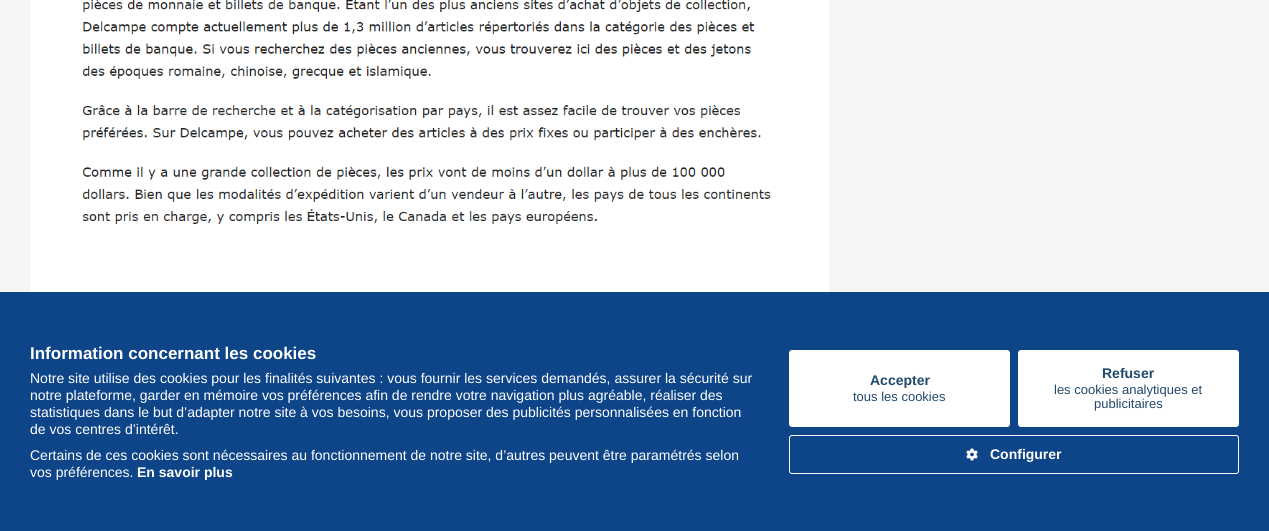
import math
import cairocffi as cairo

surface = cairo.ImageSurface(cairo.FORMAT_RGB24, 1269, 531)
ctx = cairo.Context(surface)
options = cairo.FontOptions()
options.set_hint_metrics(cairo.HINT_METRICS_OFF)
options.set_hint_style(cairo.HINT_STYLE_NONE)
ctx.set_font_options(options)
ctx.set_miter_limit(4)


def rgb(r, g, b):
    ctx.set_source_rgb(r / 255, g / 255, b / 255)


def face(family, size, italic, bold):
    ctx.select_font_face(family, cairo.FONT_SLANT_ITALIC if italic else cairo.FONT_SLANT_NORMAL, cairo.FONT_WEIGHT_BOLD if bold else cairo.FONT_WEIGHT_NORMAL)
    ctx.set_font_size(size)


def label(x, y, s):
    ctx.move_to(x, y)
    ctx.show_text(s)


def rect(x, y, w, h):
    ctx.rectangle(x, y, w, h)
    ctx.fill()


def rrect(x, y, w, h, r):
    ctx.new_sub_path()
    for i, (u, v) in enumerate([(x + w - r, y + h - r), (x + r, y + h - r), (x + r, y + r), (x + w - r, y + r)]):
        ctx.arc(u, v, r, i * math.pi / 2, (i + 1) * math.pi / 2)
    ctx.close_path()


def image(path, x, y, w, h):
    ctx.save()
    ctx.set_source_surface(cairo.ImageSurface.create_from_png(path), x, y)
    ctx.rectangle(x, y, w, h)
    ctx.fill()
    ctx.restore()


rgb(245, 245, 245)
ctx.paint()
rgb(255, 255, 255)
rect(30, 0, 799, 292)
image('image0.png', 82, 0, 689, 224)
rgb(14, 69, 136)
rect(0, 292, 1269, 239)
face('Liberation Sans', 17, 0, 1)
rgb(255, 255, 255)
label(30, 359, 'Information concernant les cookies')
face('Liberation Sans', 14, 0, 0)
label(30, 383, 'Notre site utilise des cookies pour les finalités suivantes : vous fournir les services demandés, assurer la sécurité sur')
label(30, 400, 'notre plateforme, garder en mémoire vos préférences afin de rendre votre navigation plus agréable, réaliser des')
label(30, 417, 'statistiques dans le but d’adapter notre site à vos besoins, vous proposer des publicités personnalisées en fonction')
label(30, 434, 'de vos centres d’intérêt.')
label(30, 460, 'Certains de ces cookies sont nécessaires au fonctionnement de notre site, d’autres peuvent être paramétrés selon')
label(30, 477, 'vos préférences.')
face('Liberation Sans', 14, 0, 1)
label(137, 477, 'En savoir plus')
rrect(789, 350, 221, 77, 3)
ctx.fill()
rgb(33, 72, 109)
label(870, 385, 'Accepter')
face('Liberation Sans', 13, 0, 0)
label(853, 401, 'tous les cookies')
rgb(255, 255, 255)
rrect(1018, 350, 221, 77, 3)
ctx.fill()
face('Liberation Sans', 14, 0, 1)
rgb(33, 72, 109)
label(1102, 378, 'Refuser')
face('Liberation Sans', 13, 0, 0)
label(1054, 394, 'les cookies analytiques et')
label(1094, 408, 'publicitaires')
rrect(789.5, 435.5, 449, 38, 2.5)
rgb(255, 255, 255)
ctx.set_line_width(1)
ctx.stroke()
image('image1.png', 966, 448, 12, 13)
face('Liberation Sans', 14, 0, 1)
label(990, 459, 'Configurer')
surface.write_to_png('render.png')
